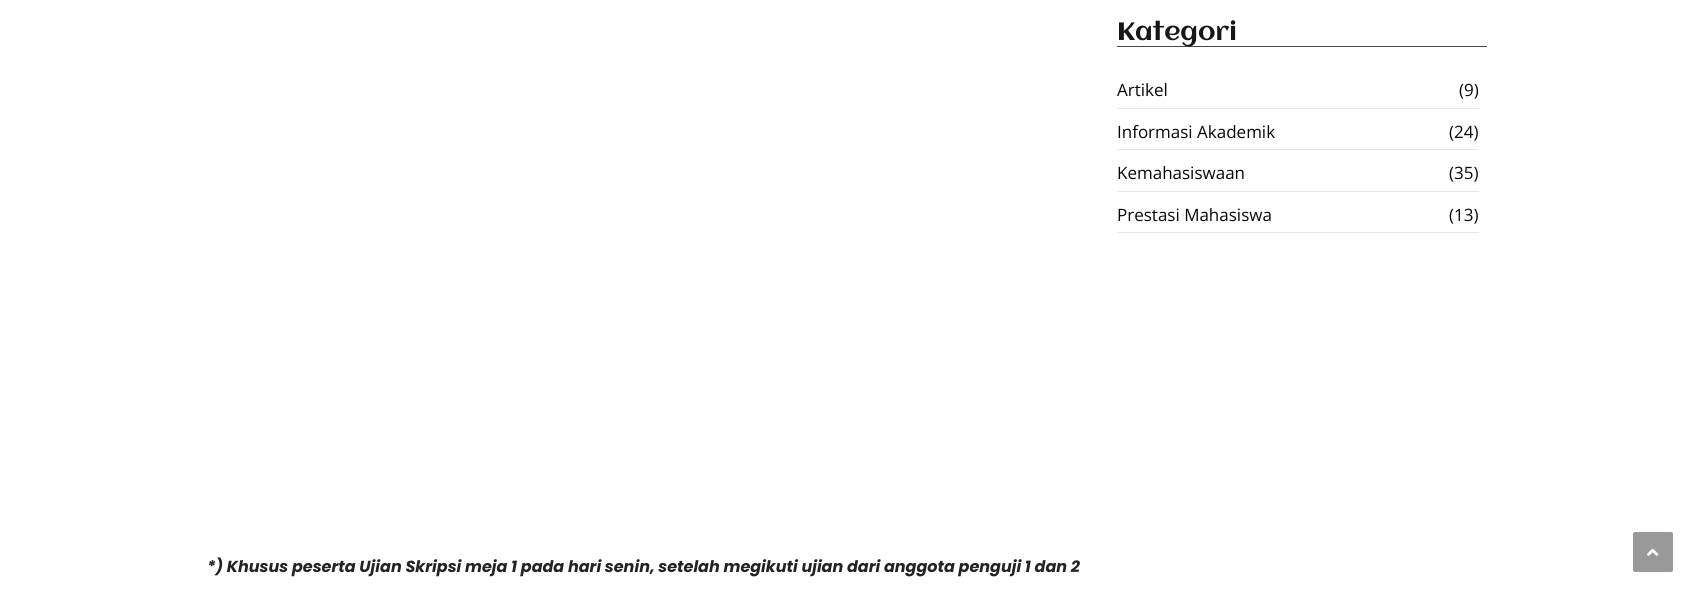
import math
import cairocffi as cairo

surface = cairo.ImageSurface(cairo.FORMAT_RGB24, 1693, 592)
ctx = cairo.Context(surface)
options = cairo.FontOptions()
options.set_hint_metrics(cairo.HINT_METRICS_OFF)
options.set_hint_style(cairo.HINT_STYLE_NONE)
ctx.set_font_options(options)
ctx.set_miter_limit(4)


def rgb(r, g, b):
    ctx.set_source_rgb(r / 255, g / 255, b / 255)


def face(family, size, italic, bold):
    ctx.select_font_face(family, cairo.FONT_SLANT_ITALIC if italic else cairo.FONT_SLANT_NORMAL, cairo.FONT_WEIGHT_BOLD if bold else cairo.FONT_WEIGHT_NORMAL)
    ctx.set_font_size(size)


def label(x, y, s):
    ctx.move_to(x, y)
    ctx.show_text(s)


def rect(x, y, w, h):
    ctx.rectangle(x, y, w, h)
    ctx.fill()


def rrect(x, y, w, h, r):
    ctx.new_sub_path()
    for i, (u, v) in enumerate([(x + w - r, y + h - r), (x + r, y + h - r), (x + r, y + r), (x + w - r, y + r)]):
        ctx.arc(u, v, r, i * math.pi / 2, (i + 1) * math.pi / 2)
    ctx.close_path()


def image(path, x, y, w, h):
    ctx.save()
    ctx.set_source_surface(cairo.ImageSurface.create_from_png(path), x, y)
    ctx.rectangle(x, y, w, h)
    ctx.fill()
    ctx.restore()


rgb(255, 255, 255)
ctx.paint()
rgb(74, 74, 74)
rect(1117, 46, 370, 1)
face('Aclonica', 25, 0, 0)
rgb(22, 23, 23)
label(1117, 40, 'Kategori')
rgb(232, 232, 232)
rect(1117, 108, 362, 1)
face('Open Sans', 17, 0, 0)
rgb(8, 8, 9)
label(1117, 96, 'Artikel')
label(1459, 96, '(9)')
rgb(232, 232, 232)
rect(1117, 149, 362, 1)
rgb(8, 8, 9)
label(1117, 138, 'Informasi Akademik')
label(1449, 138, '(24)')
rgb(232, 232, 232)
rect(1117, 191, 362, 1)
rgb(8, 8, 9)
label(1117, 179, 'Kemahasiswaan')
label(1449, 179, '(35)')
rgb(232, 232, 232)
rect(1117, 232, 362, 1)
rgb(8, 8, 9)
label(1117, 221, 'Prestasi Mahasiswa')
label(1449, 221, '(13)')
face('Poppins', 16, 1, 1)
rgb(36, 34, 34)
label(207, 572, '*) Khusus peserta Ujian Skripsi meja 1 pada hari senin, setelah megikuti ujian dari anggota penguji 1 dan 2')
rgb(153, 153, 153)
rrect(1633, 532, 40, 40, 2)
ctx.fill()
image('image0.png', 1647, 548, 12, 8)
surface.write_to_png('render.png')
